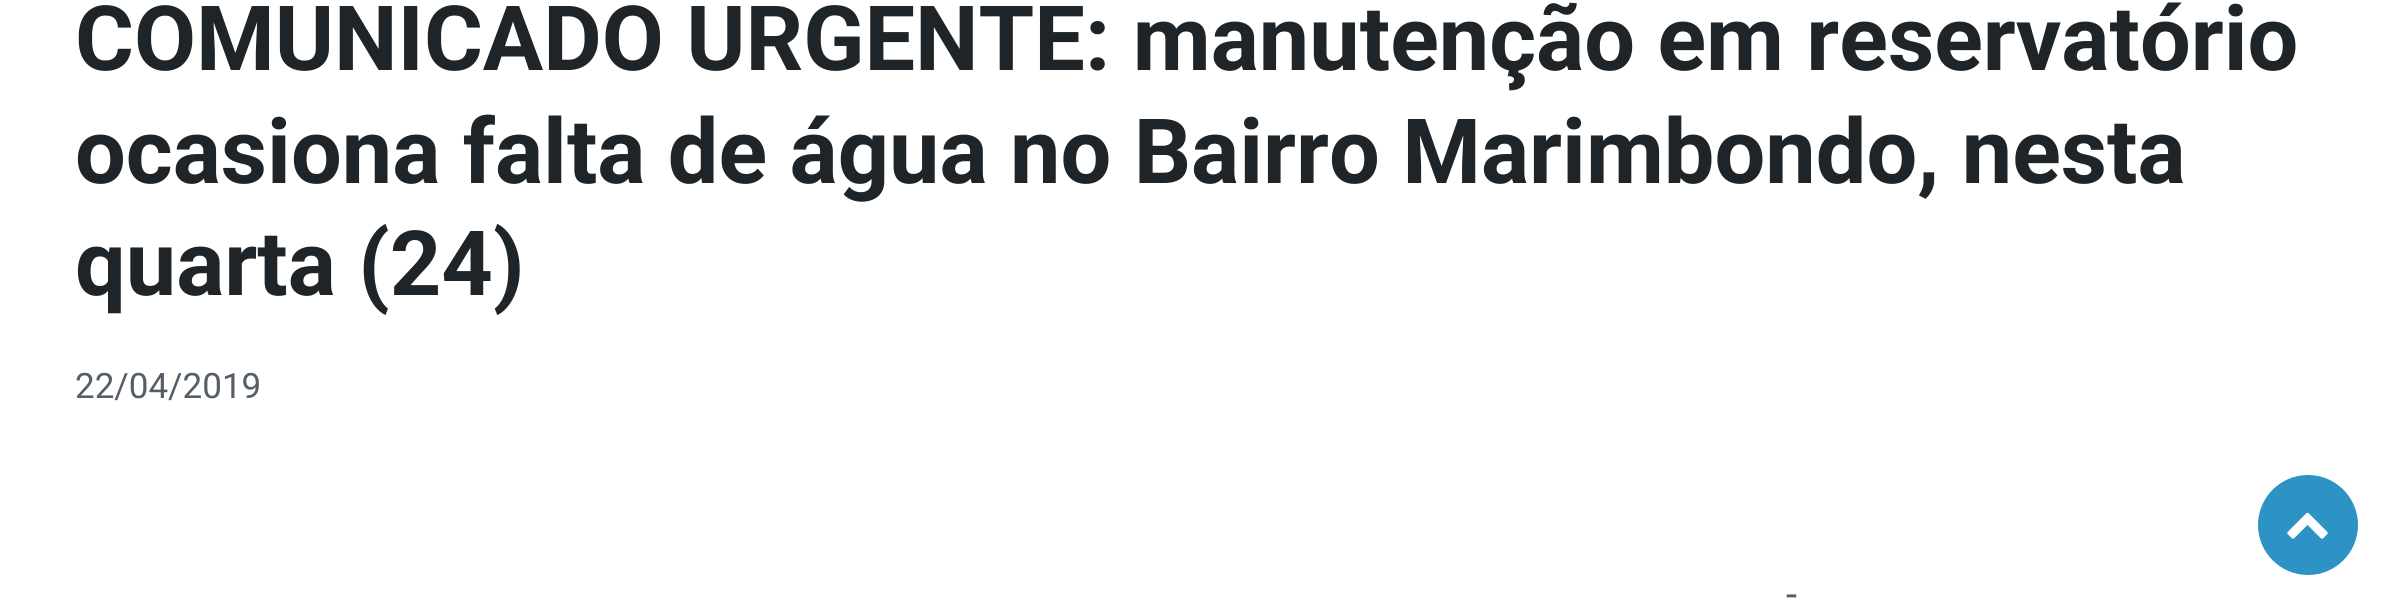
import math
import cairocffi as cairo

surface = cairo.ImageSurface(cairo.FORMAT_RGB24, 2381, 600)
ctx = cairo.Context(surface)
options = cairo.FontOptions()
options.set_hint_metrics(cairo.HINT_METRICS_OFF)
options.set_hint_style(cairo.HINT_STYLE_NONE)
ctx.set_font_options(options)
ctx.set_miter_limit(4)


def rgb(r, g, b):
    ctx.set_source_rgb(r / 255, g / 255, b / 255)


def face(family, size, italic, bold):
    ctx.select_font_face(family, cairo.FONT_SLANT_ITALIC if italic else cairo.FONT_SLANT_NORMAL, cairo.FONT_WEIGHT_BOLD if bold else cairo.FONT_WEIGHT_NORMAL)
    ctx.set_font_size(size)


def label(x, y, s):
    ctx.move_to(x, y)
    ctx.show_text(s)


def image(path, x, y, w, h):
    ctx.save()
    ctx.set_source_surface(cairo.ImageSurface.create_from_png(path), x, y)
    ctx.rectangle(x, y, w, h)
    ctx.fill()
    ctx.restore()


rgb(255, 255, 255)
ctx.paint()
face('Roboto', 90, 0, 1)
rgb(30, 36, 39)
label(75, 70, 'COMUNICADO URGENTE: manutenção em reservatório')
label(75, 183, 'ocasiona falta de água no Bairro Marimbondo, nesta')
label(75, 295, 'quarta (24)')
face('Roboto', 35, 0, 0)
rgb(84, 94, 105)
label(75, 398, '22/04/2019')
face('Roboto', 40, 0, 0)
label(1786, 608, '-')
rgb(45, 147, 197)
ctx.new_path()
ctx.arc(2308, 525, 50, 0, 2 * math.pi)
ctx.fill()
image('image0.png', 2287, 512, 41, 27)
surface.write_to_png('render.png')
